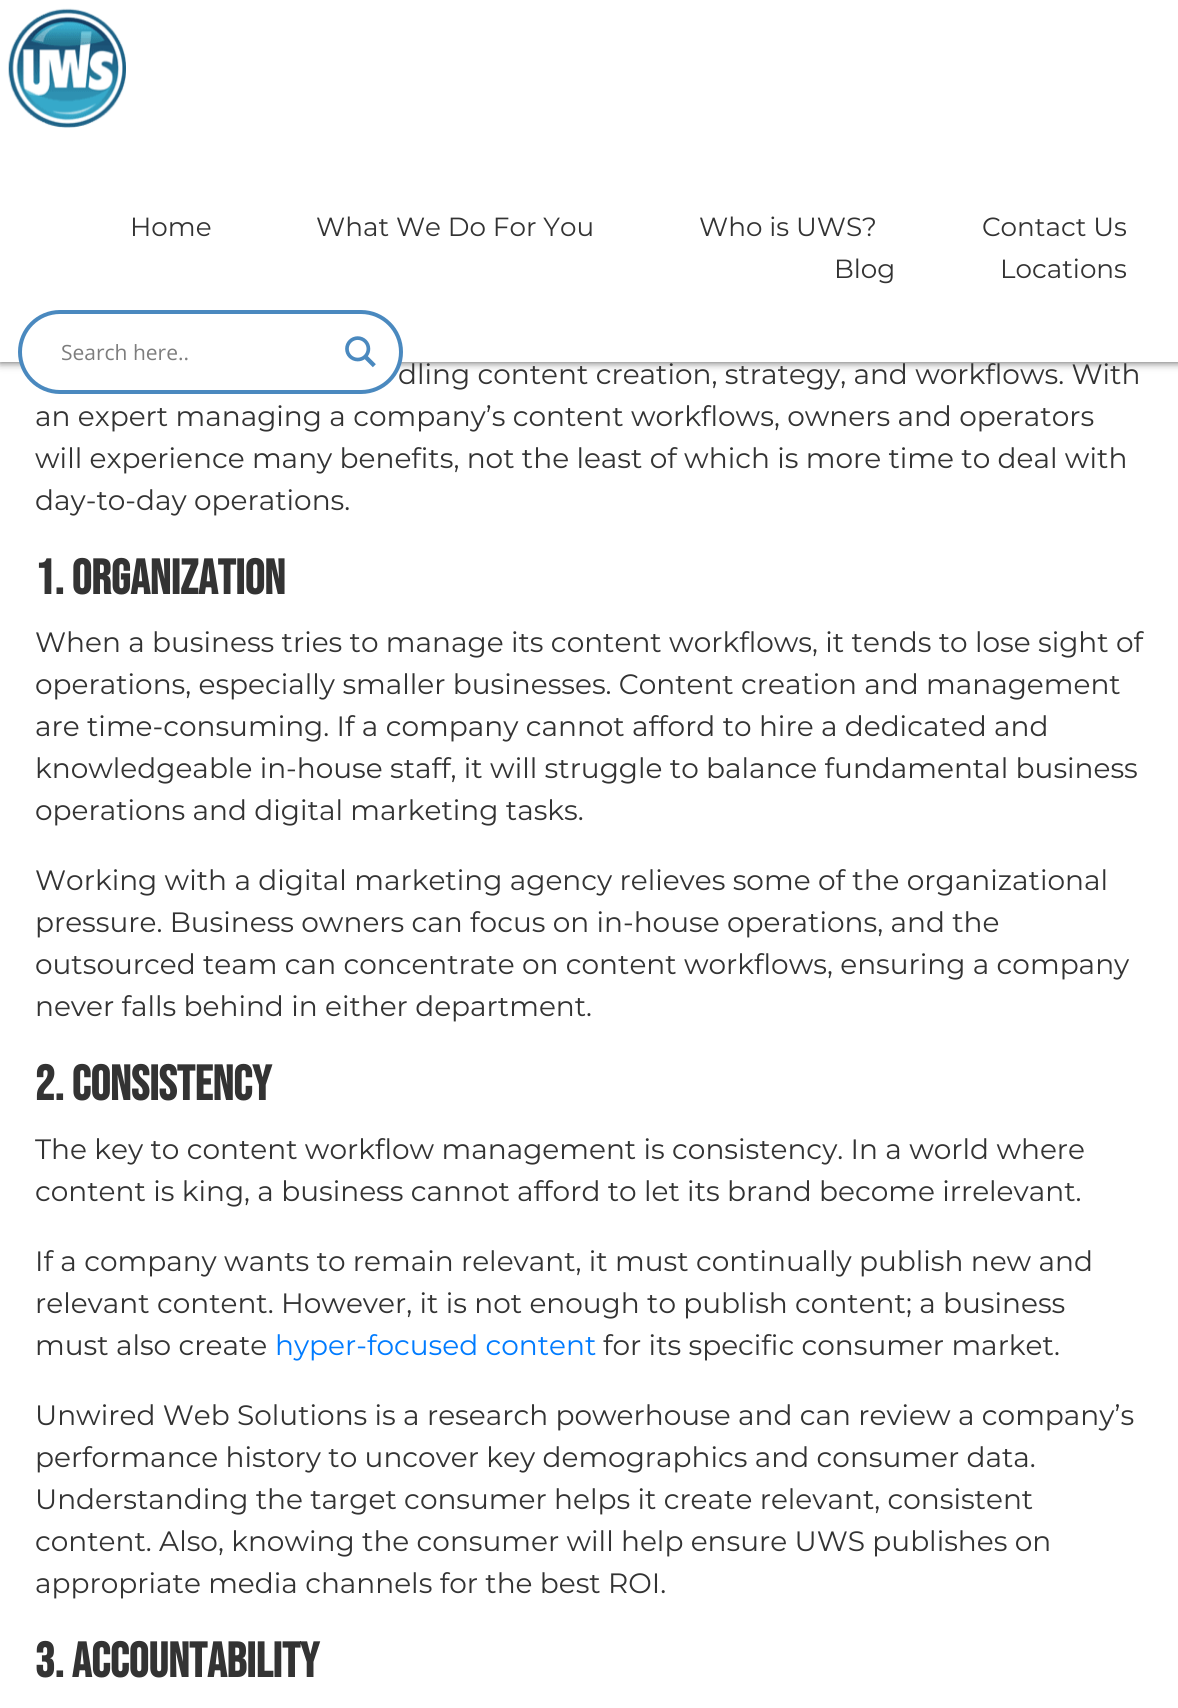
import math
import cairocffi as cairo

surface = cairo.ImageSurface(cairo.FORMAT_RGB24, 1178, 1708)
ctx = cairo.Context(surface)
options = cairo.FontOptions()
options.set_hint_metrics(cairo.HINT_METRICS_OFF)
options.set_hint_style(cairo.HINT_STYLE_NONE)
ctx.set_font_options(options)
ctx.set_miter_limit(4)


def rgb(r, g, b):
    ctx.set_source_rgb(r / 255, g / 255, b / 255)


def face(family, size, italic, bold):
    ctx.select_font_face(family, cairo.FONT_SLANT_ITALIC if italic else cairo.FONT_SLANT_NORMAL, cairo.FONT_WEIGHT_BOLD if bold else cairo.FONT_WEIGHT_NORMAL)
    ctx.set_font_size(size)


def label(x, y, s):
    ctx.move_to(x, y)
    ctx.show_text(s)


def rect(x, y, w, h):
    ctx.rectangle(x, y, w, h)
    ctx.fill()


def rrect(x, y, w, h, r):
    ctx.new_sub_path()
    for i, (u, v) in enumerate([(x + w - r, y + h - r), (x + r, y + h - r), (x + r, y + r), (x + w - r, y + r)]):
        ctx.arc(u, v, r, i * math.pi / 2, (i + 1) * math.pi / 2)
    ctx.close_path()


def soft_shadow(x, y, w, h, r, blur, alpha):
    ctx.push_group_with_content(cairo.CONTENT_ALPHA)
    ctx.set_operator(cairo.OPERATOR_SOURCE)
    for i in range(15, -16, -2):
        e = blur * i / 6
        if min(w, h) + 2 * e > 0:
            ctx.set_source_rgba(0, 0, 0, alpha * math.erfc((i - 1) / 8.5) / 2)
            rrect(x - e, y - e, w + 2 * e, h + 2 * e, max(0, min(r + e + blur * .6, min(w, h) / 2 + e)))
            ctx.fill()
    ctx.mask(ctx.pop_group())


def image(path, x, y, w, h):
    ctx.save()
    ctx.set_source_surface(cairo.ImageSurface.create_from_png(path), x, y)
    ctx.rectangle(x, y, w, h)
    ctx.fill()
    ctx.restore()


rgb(255, 255, 255)
ctx.paint()
rgb(78, 78, 78)
soft_shadow(0, 0, 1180, 362, 0, 4.5, 1)
rgb(255, 255, 255)
rect(0, 0, 1178, 362)
image('image0.png', 8, 8, 118, 120)
face('Montserrat', 26.25, 0, 0)
rgb(51, 51, 51)
label(130, 236, 'Home')
label(316, 236, 'What We Do For You')
label(699, 236, 'Who is UWS?')
label(982, 236, 'Contact Us')
label(834, 278, 'Blog')
label(1000, 278, 'Locations')
face('Montserrat', 28, 0, 0)
label(398, 384, 'dling content creation, strategy, and workflows. With')
rgb(255, 255, 255)
rrect(20, 312, 381, 80, 40)
ctx.fill_preserve()
rgb(74, 137, 191)
ctx.set_line_width(4)
ctx.stroke()
face('Open Sans', 21, 0, 0)
rgb(125, 125, 125)
label(61, 360, 'Search here..')
image('image1.png', 345, 336, 31, 32)
face('Montserrat', 28, 0, 0)
rgb(51, 51, 51)
label(35, 426, 'an expert managing a company’s content workflows, owners and operators')
label(35, 468, 'will experience many benefits, not the least of which is more time to deal with')
label(35, 510, 'day-to-day operations.')
face('Bebas Neue', 49, 0, 1)
label(35, 594, '1. Organization')
face('Montserrat', 28, 0, 0)
label(35, 652, 'When a business tries to manage its content workflows, it tends to lose sight of')
label(35, 694, 'operations, especially smaller businesses. Content creation and management')
label(35, 736, 'are time-consuming. If a company cannot afford to hire a dedicated and')
label(35, 778, 'knowledgeable in-house staff, it will struggle to balance fundamental business')
label(35, 820, 'operations and digital marketing tasks.')
label(35, 890, 'Working with a digital marketing agency relieves some of the organizational')
label(35, 932, 'pressure. Business owners can focus on in-house operations, and the')
label(35, 974, 'outsourced team can concentrate on content workflows, ensuring a company')
label(35, 1016, 'never falls behind in either department.')
face('Bebas Neue', 49, 0, 1)
label(35, 1100, '2. Consistency')
face('Montserrat', 28, 0, 0)
label(35, 1159, 'The key to content workflow management is consistency. In a world where')
label(35, 1201, 'content is king, a business cannot afford to let its brand become irrelevant.')
label(35, 1271, 'If a company wants to remain relevant, it must continually publish new and')
label(35, 1313, 'relevant content. However, it is not enough to publish content; a business')
label(35, 1355, 'must also create')
rgb(0, 123, 255)
label(275, 1355, 'hyper-focused content')
rgb(51, 51, 51)
label(603, 1355, 'for its specific consumer market.')
label(35, 1425, 'Unwired Web Solutions is a research powerhouse and can review a company’s')
label(35, 1467, 'performance history to uncover key demographics and consumer data.')
label(35, 1509, 'Understanding the target consumer helps it create relevant, consistent')
label(35, 1551, 'content. Also, knowing the consumer will help ensure UWS publishes on')
label(35, 1593, 'appropriate media channels for the best ROI.')
face('Bebas Neue', 49, 0, 1)
label(35, 1677, '3. Accountability')
surface.write_to_png('render.png')
